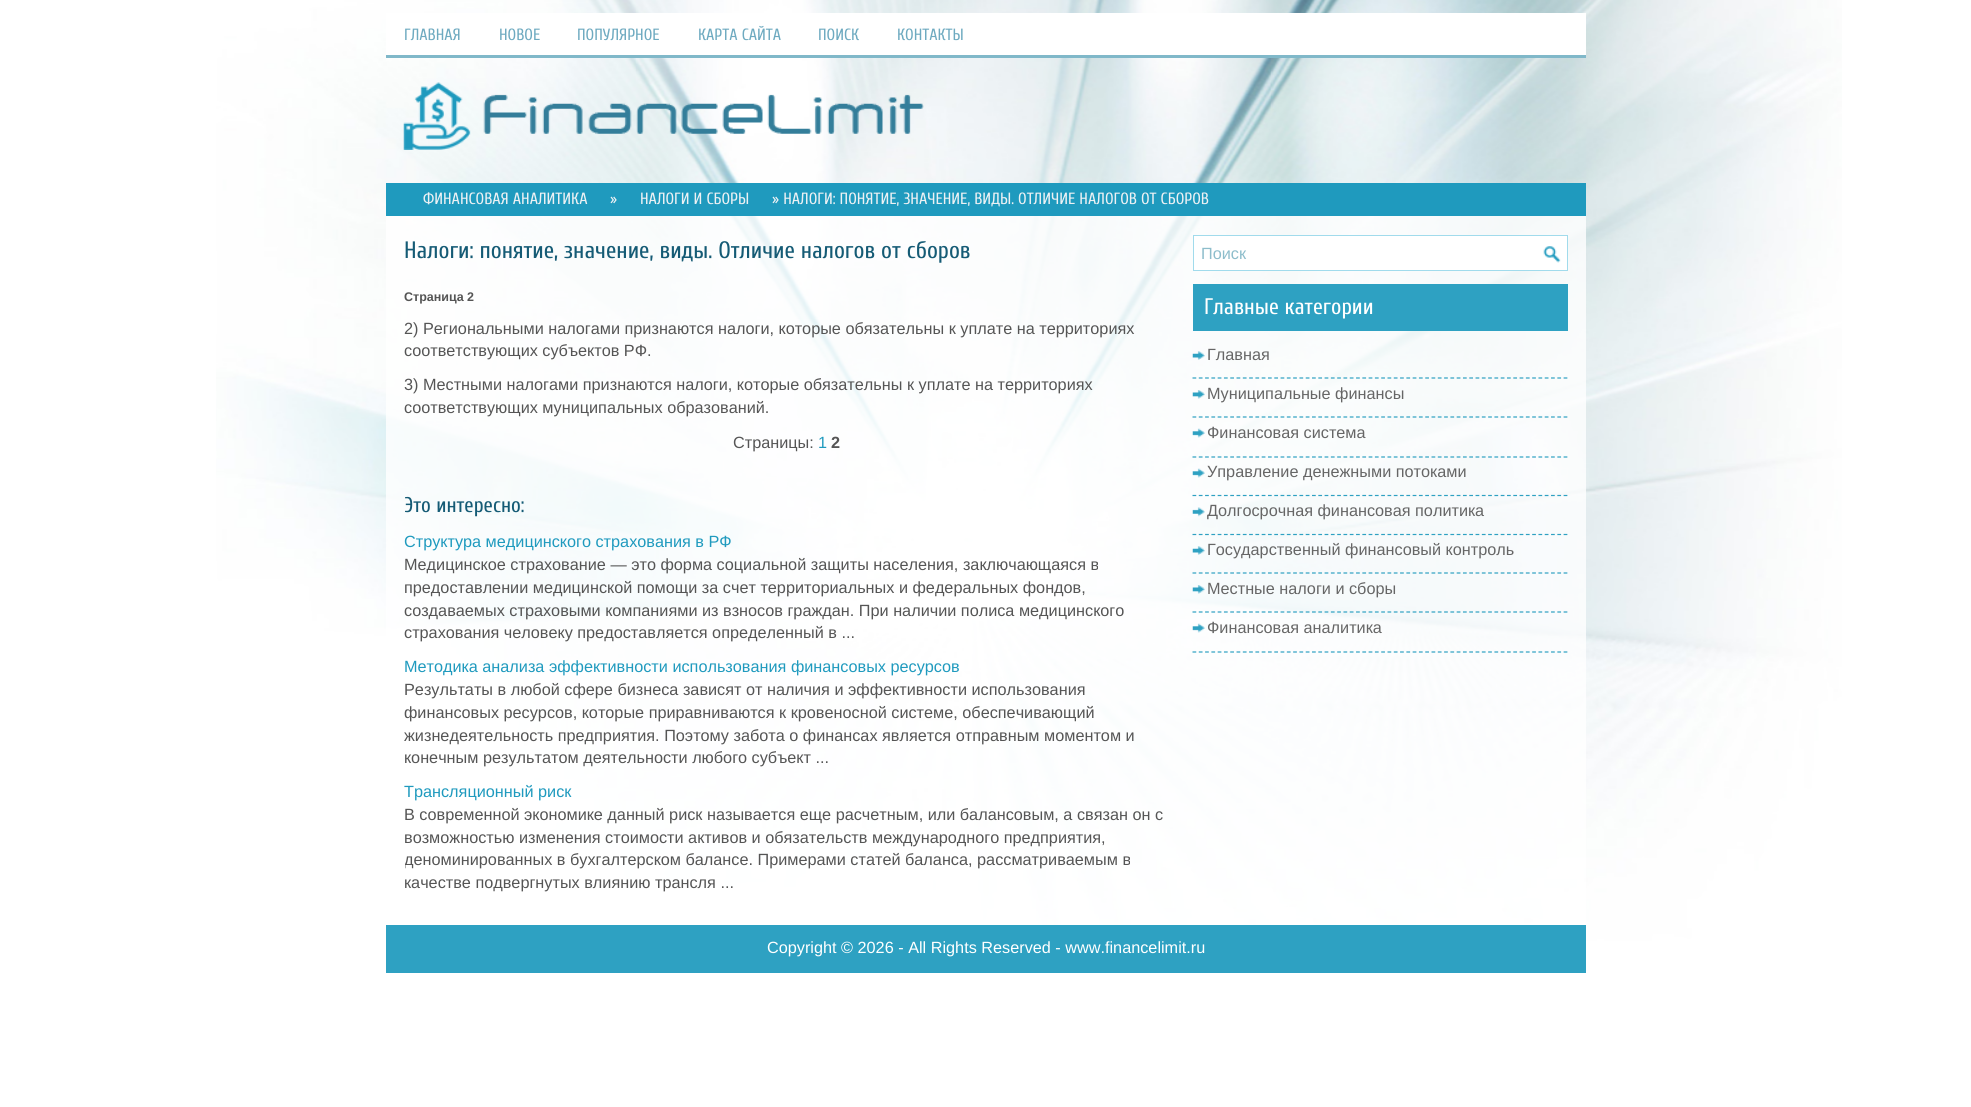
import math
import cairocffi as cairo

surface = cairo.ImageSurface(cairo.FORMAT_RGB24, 1971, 1107)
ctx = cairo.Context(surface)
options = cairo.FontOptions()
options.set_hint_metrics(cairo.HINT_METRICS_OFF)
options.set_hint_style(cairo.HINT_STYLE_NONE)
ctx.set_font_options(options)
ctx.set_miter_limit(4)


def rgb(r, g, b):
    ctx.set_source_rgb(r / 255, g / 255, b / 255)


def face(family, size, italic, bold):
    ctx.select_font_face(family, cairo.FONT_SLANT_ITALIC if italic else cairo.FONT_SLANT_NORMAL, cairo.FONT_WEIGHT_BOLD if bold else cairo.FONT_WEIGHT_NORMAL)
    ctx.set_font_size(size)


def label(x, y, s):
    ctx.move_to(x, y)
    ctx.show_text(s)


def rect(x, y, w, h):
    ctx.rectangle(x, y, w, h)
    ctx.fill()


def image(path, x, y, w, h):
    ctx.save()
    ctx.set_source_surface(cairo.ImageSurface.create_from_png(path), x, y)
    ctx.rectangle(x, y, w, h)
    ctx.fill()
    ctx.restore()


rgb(255, 255, 255)
ctx.paint()
image('image0.png', 216, 0, 1626, 941)
rgb(255, 255, 255)
rect(386, 13, 1200, 42)
rgb(128, 184, 201)
rect(386, 55, 1200, 3)
face('Cuprum', 16.25, 0, 0)
rgb(110, 170, 192)
label(404, 40, 'ГЛАВНАЯ')
label(499, 40, 'НОВОЕ')
label(577, 40, 'ПОПУЛЯРНОЕ')
label(698, 40, 'КАРТА САЙТА')
label(818, 40, 'ПОИСК')
label(897, 40, 'КОНТАКТЫ')
image('image1.png', 403, 82, 521, 68)
rgb(31, 154, 190)
rect(386, 183, 1200, 33)
rgb(237, 241, 244)
label(423, 204, 'ФИНАНСОВАЯ АНАЛИТИКА')
label(610, 204, '»')
label(640, 204, 'НАЛОГИ И СБОРЫ')
label(772, 204, '» НАЛОГИ: ПОНЯТИЕ, ЗНАЧЕНИЕ, ВИДЫ. ОТЛИЧИЕ НАЛОГОВ ОТ СБОРОВ')
ctx.set_source_rgba(1, 1, 1, 0.8)
rect(386, 216, 1200, 709)
face('Cuprum', 23.75, 0, 0)
rgb(21, 91, 117)
label(404, 258, 'Налоги: понятие, значение, виды. Отличие налогов от сборов')
face('Liberation Sans', 12.5, 0, 1)
rgb(85, 85, 85)
label(404, 301, 'Страница 2')
face('Liberation Sans', 16.25, 0, 0)
label(404, 334, '2) Региональными налогами признаются налоги, которые обязательны к уплате на территориях')
label(404, 356, 'соответствующих субъектов РФ.')
label(404, 390, '3) Местными налогами признаются налоги, которые обязательны к уплате на территориях')
label(404, 413, 'соответствующих муниципальных образований.')
label(733, 448, 'Страницы:')
rgb(31, 154, 190)
label(818, 448, '1')
face('Liberation Sans', 16.25, 0, 1)
rgb(85, 85, 85)
label(831, 448, '2')
ctx.save()
ctx.rectangle(405, 235, 769, 671)
ctx.clip()
face('Cuprum', 21.25, 0, 0)
rgb(21, 91, 117)
label(404, 512, 'Это интересно:')
ctx.restore()
face('Liberation Sans', 16.25, 0, 0)
rgb(31, 154, 190)
label(404, 547, 'Структура медицинского страхования в РФ')
rgb(85, 85, 85)
label(404, 570, 'Медицинское страхование — это форма социальной защиты населения, заключающаяся в')
label(404, 593, 'предоставлении медицинской помощи за счет территориальных и федеральных фондов,')
label(404, 616, 'создаваемых страховыми компаниями из взносов граждан. При наличии полиса медицинского')
label(404, 638, 'страхования человеку предоставляется определенный в ...')
rgb(31, 154, 190)
label(404, 672, 'Методика анализа эффективности использования финансовых ресурсов')
rgb(85, 85, 85)
label(404, 695, 'Результаты в любой сфере бизнеса зависят от наличия и эффективности использования')
label(404, 718, 'финансовых ресурсов, которые приравниваются к кровеносной системе, обеспечивающий')
label(404, 741, 'жизнедеятельность предприятия. Поэтому забота о финансах является отправным моментом и')
label(404, 763, 'конечным результатом деятельности любого субъект ...')
rgb(31, 154, 190)
label(404, 797, 'Трансляционный риск')
rgb(85, 85, 85)
label(404, 820, 'В современной экономике данный риск называется еще расчетным, или балансовым, а связан он с')
label(404, 843, 'возможностью изменения стоимости активов и обязательств международного предприятия,')
ctx.save()
ctx.rectangle(405, 235, 769, 671)
ctx.clip()
label(404, 865, 'деноминированных в бухгалтерском балансе. Примерами статей баланса, рассматриваемым в')
ctx.restore()
label(404, 888, 'качестве подвергнутых влиянию трансля ...')
rgb(255, 255, 255)
rect(1194, 236, 373, 34)
image('image2.png', 1543, 246, 18, 17)
ctx.rectangle(1193.5, 235.5, 374, 35)
rgb(161, 219, 236)
ctx.set_line_width(1)
ctx.stroke()
rgb(141, 189, 203)
label(1201, 259, 'Поиск')
rgb(46, 161, 194)
rect(1193, 284, 375, 47)
face('Cuprum', 22.5, 0, 0)
rgb(255, 255, 255)
label(1204, 314, 'Главные категории')
image('image3.png', 1192, 351, 13, 9)
ctx.new_path()
ctx.move_to(1192.5, 378)
ctx.line_to(1567.5, 378)
rgb(46, 161, 194)
ctx.set_line_width(1.2)
ctx.set_dash([3.75, 2.54])
ctx.stroke()
face('Liberation Sans', 16.25, 0, 0)
rgb(102, 102, 102)
label(1207, 360, 'Главная')
image('image4.png', 1192, 390, 13, 9)
ctx.new_path()
ctx.move_to(1192.5, 417)
ctx.line_to(1567.5, 417)
rgb(46, 161, 194)
ctx.stroke()
rgb(102, 102, 102)
label(1207, 399, 'Муниципальные финансы')
image('image5.png', 1192, 428, 13, 10)
ctx.new_path()
ctx.move_to(1192.5, 457)
ctx.line_to(1567.5, 457)
rgb(46, 161, 194)
ctx.stroke()
rgb(102, 102, 102)
label(1207, 438, 'Финансовая система')
image('image6.png', 1192, 468, 13, 10)
ctx.new_path()
ctx.move_to(1192.5, 495.5)
ctx.line_to(1567.5, 495.5)
rgb(46, 161, 194)
ctx.stroke()
rgb(102, 102, 102)
label(1207, 477, 'Управление денежными потоками')
image('image7.png', 1192, 507, 13, 10)
ctx.new_path()
ctx.move_to(1192.5, 534.5)
ctx.line_to(1567.5, 534.5)
rgb(46, 161, 194)
ctx.stroke()
rgb(102, 102, 102)
label(1207, 516, 'Долгосрочная финансовая политика')
image('image8.png', 1192, 546, 13, 9)
ctx.new_path()
ctx.move_to(1192.5, 573)
ctx.line_to(1567.5, 573)
rgb(46, 161, 194)
ctx.stroke()
rgb(102, 102, 102)
label(1207, 555, 'Государственный финансовый контроль')
image('image9.png', 1192, 585, 13, 9)
ctx.new_path()
ctx.move_to(1192.5, 612)
ctx.line_to(1567.5, 612)
rgb(46, 161, 194)
ctx.stroke()
rgb(102, 102, 102)
label(1207, 594, 'Местные налоги и сборы')
image('image10.png', 1192, 623, 13, 10)
ctx.new_path()
ctx.move_to(1192.5, 652)
ctx.line_to(1567.5, 652)
rgb(46, 161, 194)
ctx.stroke()
rgb(102, 102, 102)
label(1207, 633, 'Финансовая аналитика')
rgb(46, 161, 194)
rect(386, 925, 1200, 48)
rgb(255, 255, 255)
label(767, 953, 'Copyright © 2026 - All Rights Reserved - www.financelimit.ru')
surface.write_to_png('render.png')
